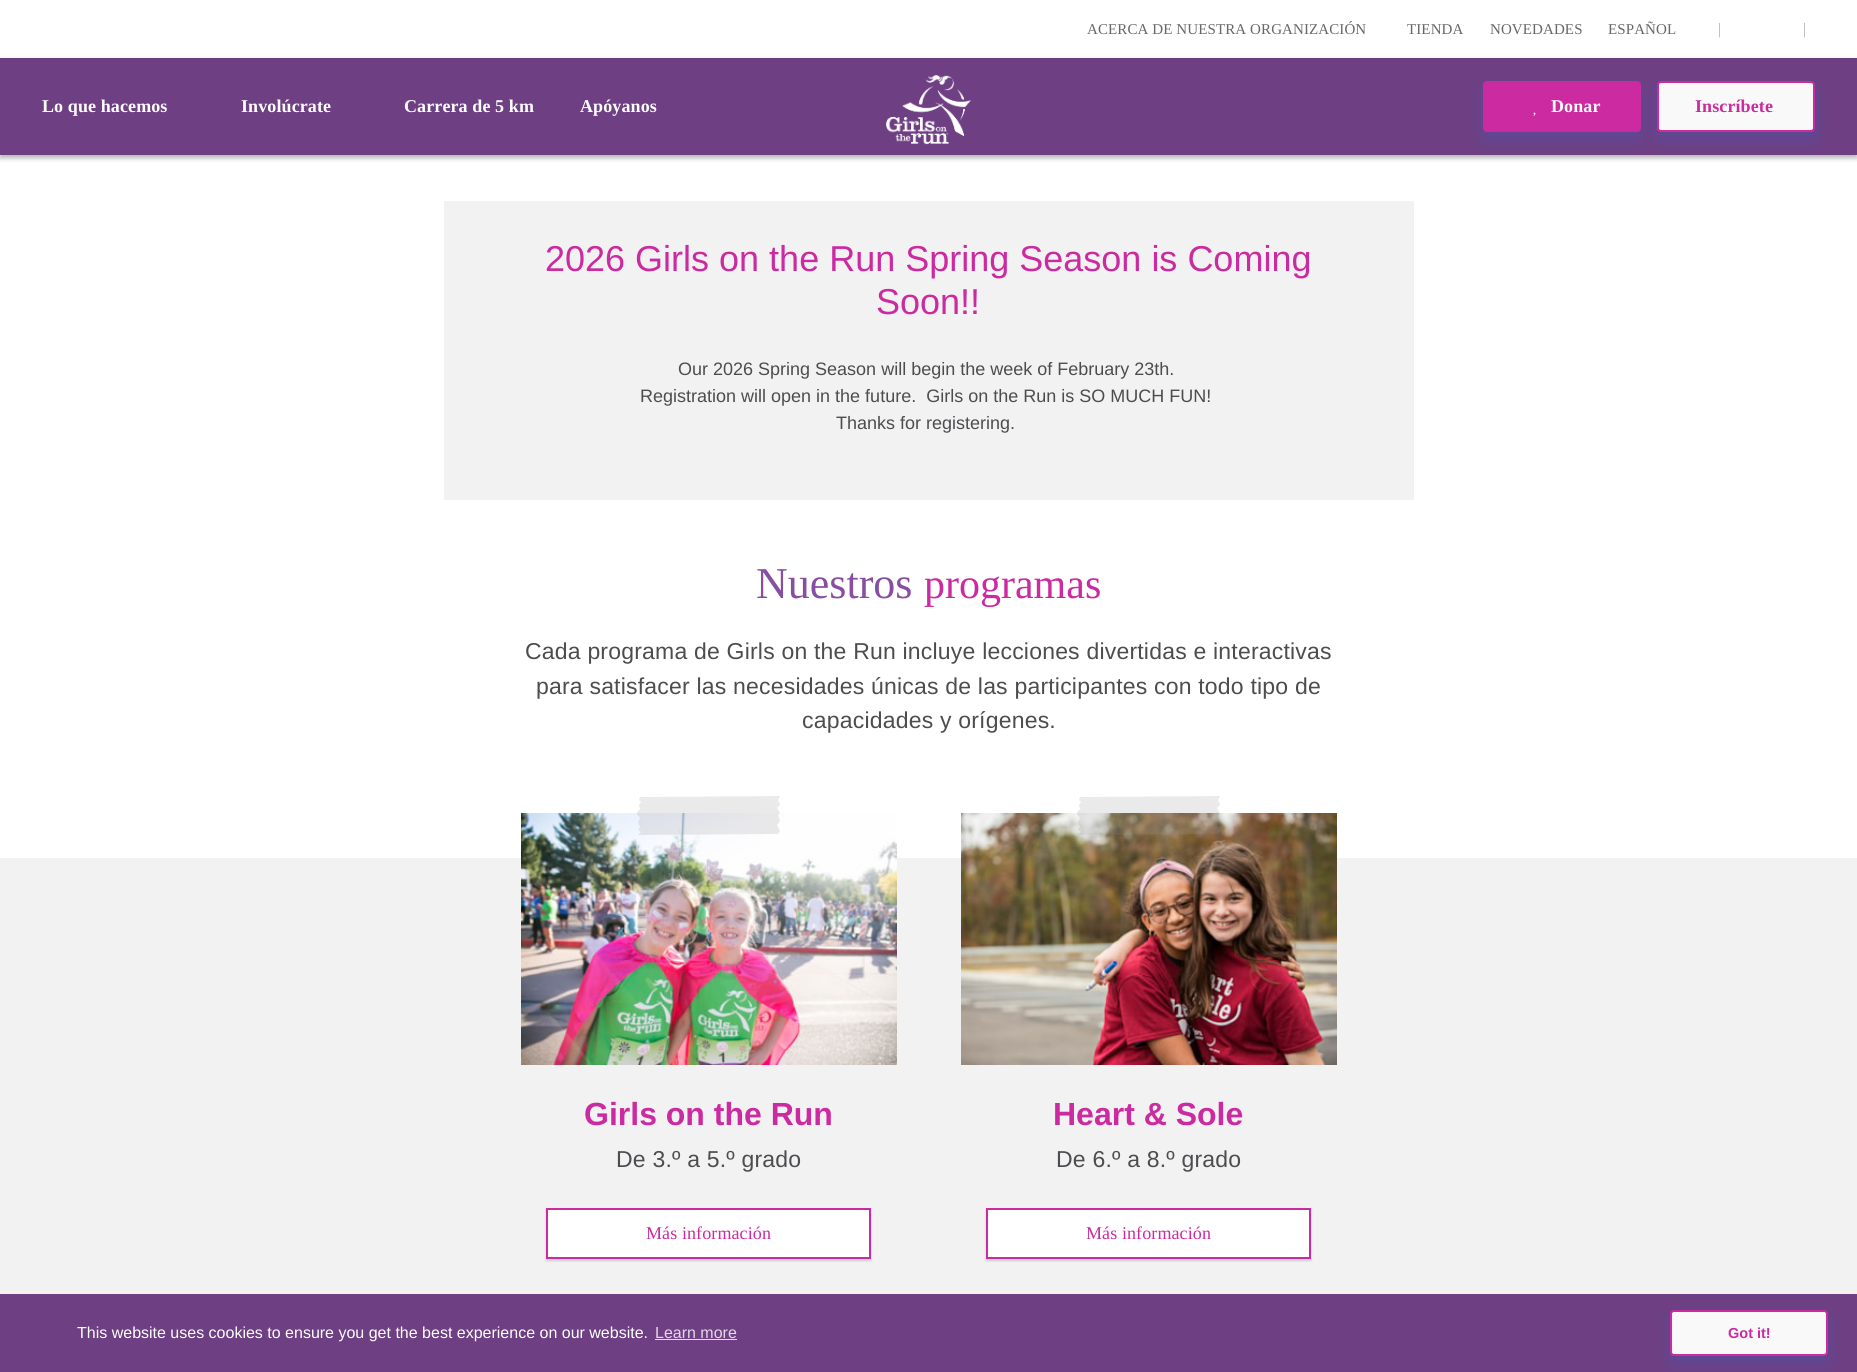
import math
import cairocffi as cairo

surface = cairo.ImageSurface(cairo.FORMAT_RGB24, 1857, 1372)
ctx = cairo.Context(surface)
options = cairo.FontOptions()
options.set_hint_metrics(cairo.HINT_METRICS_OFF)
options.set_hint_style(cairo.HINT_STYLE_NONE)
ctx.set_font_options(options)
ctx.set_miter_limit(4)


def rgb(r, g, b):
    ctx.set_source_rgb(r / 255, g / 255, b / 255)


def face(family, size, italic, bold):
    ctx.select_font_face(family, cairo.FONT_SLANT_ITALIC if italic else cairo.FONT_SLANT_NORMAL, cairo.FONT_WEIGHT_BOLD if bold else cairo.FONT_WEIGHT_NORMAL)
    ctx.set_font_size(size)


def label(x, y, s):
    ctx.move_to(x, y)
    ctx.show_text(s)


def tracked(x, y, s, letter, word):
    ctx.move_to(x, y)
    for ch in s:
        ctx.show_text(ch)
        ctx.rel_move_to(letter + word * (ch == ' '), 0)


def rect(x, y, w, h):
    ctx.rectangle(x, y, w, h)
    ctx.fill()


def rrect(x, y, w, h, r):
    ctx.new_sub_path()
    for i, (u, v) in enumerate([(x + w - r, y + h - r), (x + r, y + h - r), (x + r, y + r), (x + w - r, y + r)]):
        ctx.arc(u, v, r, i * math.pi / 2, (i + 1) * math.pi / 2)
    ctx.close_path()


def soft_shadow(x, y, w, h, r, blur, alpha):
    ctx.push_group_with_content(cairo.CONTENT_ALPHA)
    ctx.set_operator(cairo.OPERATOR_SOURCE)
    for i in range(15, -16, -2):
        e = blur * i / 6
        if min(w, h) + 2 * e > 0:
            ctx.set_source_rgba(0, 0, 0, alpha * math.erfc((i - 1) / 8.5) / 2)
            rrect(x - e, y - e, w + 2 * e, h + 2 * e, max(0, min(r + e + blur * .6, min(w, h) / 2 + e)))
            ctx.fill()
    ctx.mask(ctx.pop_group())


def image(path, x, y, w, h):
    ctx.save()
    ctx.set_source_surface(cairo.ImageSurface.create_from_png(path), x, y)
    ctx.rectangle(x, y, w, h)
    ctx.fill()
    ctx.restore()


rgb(255, 255, 255)
ctx.paint()
face('Liberation Serif', 15, 0, 0)
rgb(103, 103, 105)
tracked(1087, 34, 'ACERCA DE NUESTRA ORGANIZACIÓN', 0.1, 0)
tracked(1407, 34, 'TIENDA', 0.1, 0)
tracked(1490, 34, 'NOVEDADES', 0.1, 0)
tracked(1608, 34, 'ESPAÑOL', 0.1, 0)
face('Liberation Serif', 16, 0, 0)
rgb(179, 179, 180)
label(1718, 34, '|')
label(1803, 34, '|')
rgb(0, 0, 0)
soft_shadow(0, 61, 1857, 97, 0, 2.5, 0.3)
rgb(110, 63, 131)
rect(0, 58, 1857, 97)
image('image0.png', 886, 75, 85, 70)
face('Liberation Serif', 18, 0, 1)
rgb(255, 255, 255)
tracked(42, 112, 'Lo que hacemos', 0.1, 0)
tracked(241, 112, 'Involúcrate', 0.1, 0)
tracked(404, 112, 'Carrera de 5 km', 0.1, 0)
tracked(580, 112, 'Apóyanos', 0.1, 0)
rgb(0, 126, 255)
soft_shadow(1483, 89, 158, 51, 4, 8, 0.16)
rgb(203, 42, 160)
rrect(1484, 82, 156, 49, 3)
ctx.fill_preserve()
ctx.stroke()
rgb(249, 249, 250)
tracked(1551, 112, 'Donar', 0.1, 0)
image('image1.png', 1533, 112, 3, 4)
rgb(0, 126, 255)
soft_shadow(1657, 89, 158, 51, 4, 8, 0.16)
rgb(249, 249, 250)
rrect(1658, 82, 156, 49, 3)
ctx.fill_preserve()
rgb(203, 42, 160)
ctx.stroke()
tracked(1695, 112, 'Inscríbete', 0.1, 0)
rgb(242, 242, 243)
rect(444, 201, 970, 299)
face('Liberation Sans', 36, 0, 0)
rgb(203, 42, 160)
label(545, 271, '2026 Girls on the Run Spring Season is Coming')
label(876, 314, 'Soon!!')
face('Liberation Sans', 18, 0, 0)
rgb(77, 77, 79)
label(678, 375, 'Our 2026 Spring Season will begin the week of February 23th.')
label(640, 402, 'Registration will open in the future.  Girls on the Run is SO MUCH FUN!')
label(836, 429, 'Thanks for registering.')
face('Liberation Serif', 44, 0, 0)
rgb(135, 78, 161)
label(756, 598, 'Nuestros')
face('Liberation Serif', 42, 0, 0)
rgb(203, 42, 160)
label(924, 598, 'programas')
face('Liberation Sans', 23, 0, 0)
rgb(77, 77, 79)
tracked(525, 659, 'Cada programa de Girls on the Run incluye lecciones divertidas e interactivas', 0.2, 0)
tracked(536, 694, 'para satisfacer las necesidades únicas de las participantes con todo tipo de', 0.2, 0)
tracked(802, 728, 'capacidades y orígenes.', 0.2, 0)
rgb(242, 242, 243)
rect(0, 858, 1857, 436)
image('image2.png', 521, 813, 376, 252)
ctx.set_source_rgba(0.6, 0.6, 0.608, 0.2)
ctx.new_path()
ctx.move_to(778, 834)
ctx.line_to(638, 835)
ctx.line_to(641, 832)
ctx.line_to(638, 830)
ctx.line_to(640, 827)
ctx.line_to(638, 822)
ctx.line_to(640, 818)
ctx.line_to(637, 814)
ctx.line_to(637, 812)
ctx.line_to(640, 809)
ctx.line_to(639, 805)
ctx.line_to(641, 802)
ctx.line_to(639, 800)
ctx.line_to(640, 797)
ctx.line_to(780, 796)
ctx.line_to(778, 800)
ctx.line_to(780, 805)
ctx.line_to(777, 808)
ctx.line_to(780, 813)
ctx.line_to(778, 815)
ctx.line_to(780, 821)
ctx.line_to(777, 825)
ctx.line_to(780, 831)
ctx.close_path()
ctx.fill()
face('Liberation Sans', 32, 0, 1)
rgb(203, 42, 160)
label(584, 1125, 'Girls on the Run')
face('Liberation Sans', 23, 0, 0)
rgb(77, 77, 79)
tracked(616, 1167, 'De 3.º a 5.º grado', 0.2, 0)
rgb(0, 0, 0)
soft_shadow(546, 1210, 325, 51, 0, 1, 0.15)
rgb(255, 255, 255)
ctx.rectangle(547, 1209, 323, 49)
ctx.fill_preserve()
rgb(203, 42, 160)
ctx.stroke()
face('Liberation Serif', 18, 0, 0)
tracked(646, 1239, 'Más información', 0.1, 0)
image('image3.png', 961, 813, 376, 252)
ctx.set_source_rgba(0.6, 0.6, 0.608, 0.2)
ctx.new_path()
ctx.move_to(1218, 834)
ctx.line_to(1078, 835)
ctx.line_to(1081, 832)
ctx.line_to(1078, 830)
ctx.line_to(1080, 827)
ctx.line_to(1078, 822)
ctx.line_to(1080, 818)
ctx.line_to(1077, 814)
ctx.line_to(1077, 812)
ctx.line_to(1080, 809)
ctx.line_to(1079, 805)
ctx.line_to(1081, 802)
ctx.line_to(1079, 800)
ctx.line_to(1080, 797)
ctx.line_to(1220, 796)
ctx.line_to(1218, 800)
ctx.line_to(1220, 805)
ctx.line_to(1217, 808)
ctx.line_to(1220, 813)
ctx.line_to(1218, 815)
ctx.line_to(1220, 821)
ctx.line_to(1217, 825)
ctx.line_to(1220, 831)
ctx.close_path()
ctx.fill()
face('Liberation Sans', 32, 0, 1)
rgb(203, 42, 160)
label(1053, 1125, 'Heart & Sole')
face('Liberation Sans', 23, 0, 0)
rgb(77, 77, 79)
tracked(1056, 1167, 'De 6.º a 8.º grado', 0.2, 0)
rgb(0, 0, 0)
soft_shadow(986, 1210, 325, 51, 0, 1, 0.15)
rgb(255, 255, 255)
ctx.rectangle(987, 1209, 323, 49)
ctx.fill_preserve()
rgb(203, 42, 160)
ctx.stroke()
face('Liberation Serif', 18, 0, 0)
tracked(1086, 1239, 'Más información', 0.1, 0)
rgb(110, 63, 131)
rect(0, 1294, 1857, 78)
face('Liberation Sans', 16, 0, 0)
rgb(255, 255, 255)
label(77, 1338, 'This website uses cookies to ensure you get the best experience on our website.')
rgb(226, 217, 230)
label(655, 1338, 'Learn more')
rect(655, 1339, 82, 1)
rgb(0, 126, 255)
soft_shadow(1670, 1318, 158, 46, 4, 8, 0.16)
rgb(249, 249, 250)
rrect(1671, 1311, 156, 44, 3)
ctx.fill_preserve()
rgb(203, 42, 160)
ctx.stroke()
face('Liberation Sans', 14.5, 0, 1)
label(1728, 1338, 'Got it!')
surface.write_to_png('render.png')
